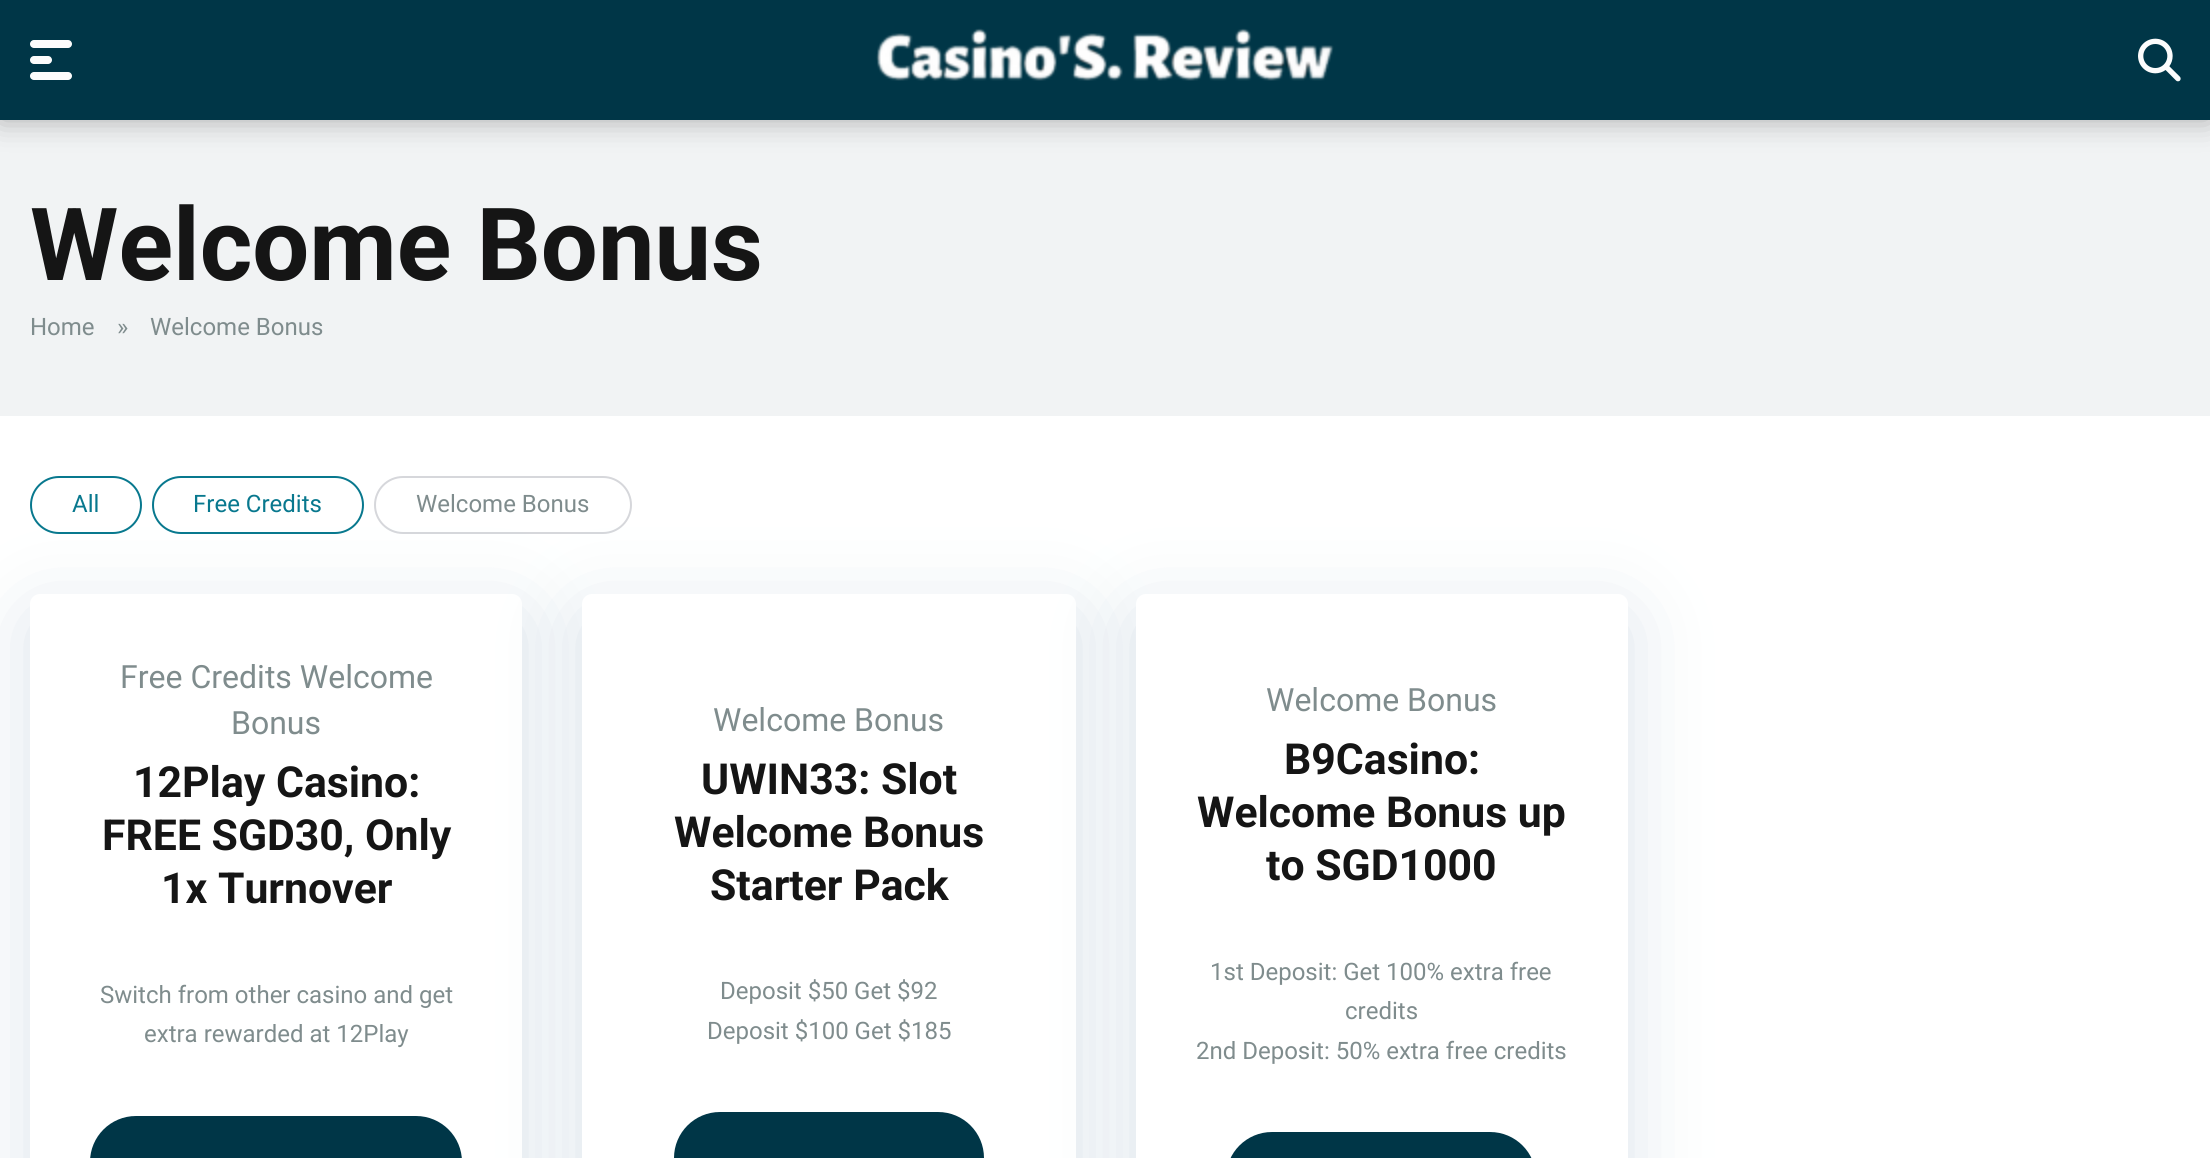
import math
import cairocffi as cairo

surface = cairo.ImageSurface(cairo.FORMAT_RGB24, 2210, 1158)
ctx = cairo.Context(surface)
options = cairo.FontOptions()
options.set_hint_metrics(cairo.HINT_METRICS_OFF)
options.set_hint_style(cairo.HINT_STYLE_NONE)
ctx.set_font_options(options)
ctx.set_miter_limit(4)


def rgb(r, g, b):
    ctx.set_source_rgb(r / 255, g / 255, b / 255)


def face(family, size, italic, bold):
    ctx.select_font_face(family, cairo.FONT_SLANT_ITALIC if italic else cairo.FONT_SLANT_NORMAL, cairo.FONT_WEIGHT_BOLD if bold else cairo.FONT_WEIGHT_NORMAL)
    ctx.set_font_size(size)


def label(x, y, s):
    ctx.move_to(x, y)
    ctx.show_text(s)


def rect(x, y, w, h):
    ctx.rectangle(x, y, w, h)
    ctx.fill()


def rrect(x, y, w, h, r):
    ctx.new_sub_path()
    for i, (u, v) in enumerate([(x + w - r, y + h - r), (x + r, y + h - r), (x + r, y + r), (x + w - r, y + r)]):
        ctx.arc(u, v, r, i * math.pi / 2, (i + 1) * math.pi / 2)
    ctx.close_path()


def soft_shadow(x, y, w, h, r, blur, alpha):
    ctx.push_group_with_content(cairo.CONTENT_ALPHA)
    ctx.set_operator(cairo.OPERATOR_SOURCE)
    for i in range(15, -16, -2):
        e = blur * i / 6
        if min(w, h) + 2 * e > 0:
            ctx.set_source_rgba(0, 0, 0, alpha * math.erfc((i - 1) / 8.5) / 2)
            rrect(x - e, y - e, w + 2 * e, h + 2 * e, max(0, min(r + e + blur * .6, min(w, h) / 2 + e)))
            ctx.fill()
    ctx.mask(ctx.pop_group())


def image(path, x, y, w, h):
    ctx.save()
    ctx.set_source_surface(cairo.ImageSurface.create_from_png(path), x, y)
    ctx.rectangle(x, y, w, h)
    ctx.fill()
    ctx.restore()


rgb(255, 255, 255)
ctx.paint()
rgb(241, 243, 244)
rect(0, 120, 2210, 296)
rgb(0, 0, 0)
soft_shadow(0, 0, 2210, 120, 0, 15, 0.3)
rgb(0, 54, 71)
rect(0, 0, 2210, 120)
rgb(252, 252, 252)
rrect(30, 40, 42, 8, 4)
ctx.fill()
rrect(30, 56, 22, 8, 4)
ctx.fill()
rrect(30, 72, 42, 8, 4)
ctx.fill()
image('image0.png', 876, 28, 458, 53)
image('image1.png', 2138, 38, 43, 44)
face('Roboto', 101, 0, 1)
rgb(21, 21, 21)
label(30, 280, 'Welcome Bonus')
face('Roboto', 24, 0, 0)
rgb(127, 140, 141)
label(30, 335, 'Home')
label(117, 335, '»')
label(150, 335, 'Welcome Bonus')
rrect(31, 477, 110, 56, 28)
rgb(8, 120, 142)
ctx.stroke()
label(72, 512, 'All')
rrect(153, 477, 210, 56, 28)
ctx.stroke()
label(193, 512, 'Free Credits')
rrect(375, 477, 256, 56, 28)
rgb(214, 215, 219)
ctx.stroke()
rgb(127, 140, 141)
label(416, 512, 'Welcome Bonus')
rgb(109, 141, 173)
soft_shadow(30, 614, 492, 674, 10, 40, 0.25)
rgb(255, 255, 255)
rrect(30, 594, 492, 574, 10)
ctx.fill()
face('Roboto', 32, 0, 0)
rgb(127, 140, 141)
label(120, 688, 'Free Credits Welcome')
label(231, 734, 'Bonus')
face('Roboto', 42.75, 0, 1)
rgb(21, 21, 21)
label(133, 797, '12Play Casino:')
label(102, 850, 'FREE SGD30, Only')
label(161, 903, '1x Turnover')
face('Roboto', 24, 0, 0)
rgb(127, 140, 141)
label(100, 1003, 'Switch from other casino and get')
label(144, 1042, 'extra rewarded at 12Play')
rgb(0, 54, 71)
rrect(90, 1116, 372, 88, 46)
ctx.fill()
rgb(109, 141, 173)
soft_shadow(582, 614, 494, 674, 10, 40, 0.25)
rgb(255, 255, 255)
rrect(582, 594, 494, 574, 10)
ctx.fill()
face('Roboto', 32, 0, 0)
rgb(127, 140, 141)
label(713, 731, 'Welcome Bonus')
face('Roboto', 42.75, 0, 1)
rgb(21, 21, 21)
label(701, 794, 'UWIN33: Slot')
label(674, 847, 'Welcome Bonus')
label(710, 900, 'Starter Pack')
face('Roboto', 24, 0, 0)
rgb(127, 140, 141)
label(720, 999, 'Deposit $50 Get $92')
label(707, 1039, 'Deposit $100 Get $185')
rgb(0, 54, 71)
rrect(674, 1112, 310, 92, 46)
ctx.fill()
rgb(109, 141, 173)
soft_shadow(1136, 614, 492, 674, 10, 40, 0.25)
rgb(255, 255, 255)
rrect(1136, 594, 492, 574, 10)
ctx.fill()
face('Roboto', 32, 0, 0)
rgb(127, 140, 141)
label(1266, 711, 'Welcome Bonus')
face('Roboto', 42.75, 0, 1)
rgb(21, 21, 21)
label(1284, 774, 'B9Casino:')
label(1197, 827, 'Welcome Bonus up')
label(1266, 880, 'to SGD1000')
face('Roboto', 24, 0, 0)
rgb(127, 140, 141)
label(1210, 980, '1st Deposit: Get 100% extra free')
label(1345, 1019, 'credits')
label(1196, 1059, '2nd Deposit: 50% extra free credits')
rgb(0, 54, 71)
rrect(1226, 1132, 310, 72, 46)
ctx.fill()
surface.write_to_png('render.png')
